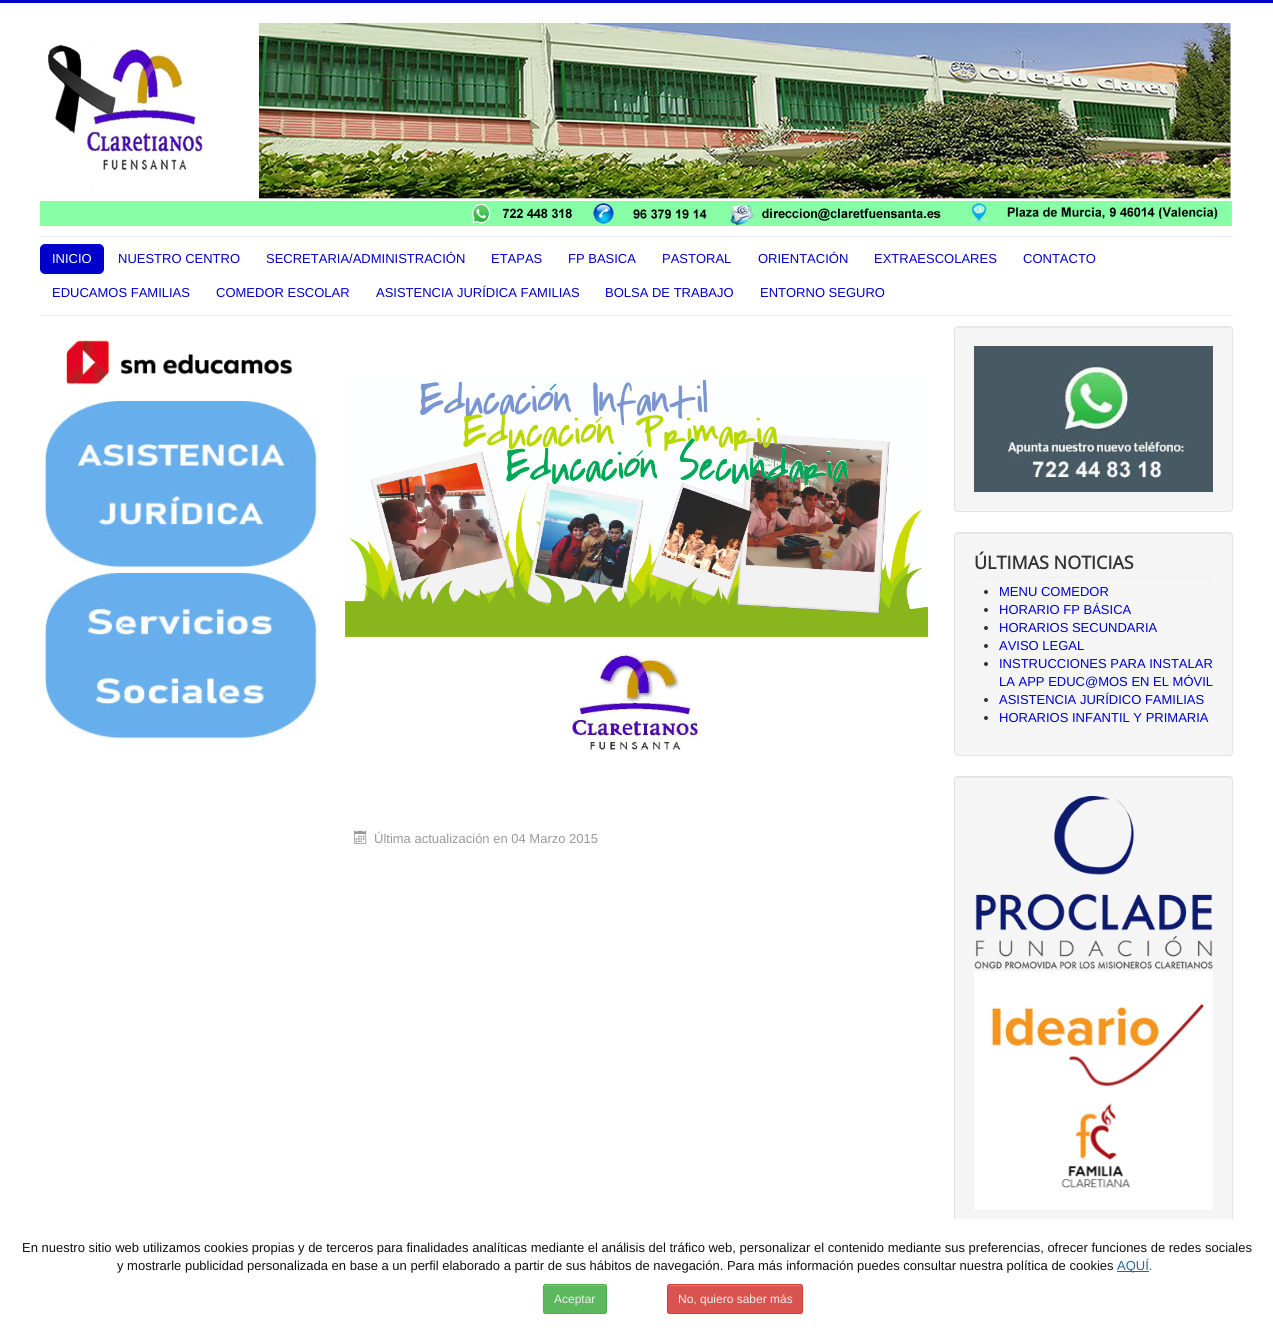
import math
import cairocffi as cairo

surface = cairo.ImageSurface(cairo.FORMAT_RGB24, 1273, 1334)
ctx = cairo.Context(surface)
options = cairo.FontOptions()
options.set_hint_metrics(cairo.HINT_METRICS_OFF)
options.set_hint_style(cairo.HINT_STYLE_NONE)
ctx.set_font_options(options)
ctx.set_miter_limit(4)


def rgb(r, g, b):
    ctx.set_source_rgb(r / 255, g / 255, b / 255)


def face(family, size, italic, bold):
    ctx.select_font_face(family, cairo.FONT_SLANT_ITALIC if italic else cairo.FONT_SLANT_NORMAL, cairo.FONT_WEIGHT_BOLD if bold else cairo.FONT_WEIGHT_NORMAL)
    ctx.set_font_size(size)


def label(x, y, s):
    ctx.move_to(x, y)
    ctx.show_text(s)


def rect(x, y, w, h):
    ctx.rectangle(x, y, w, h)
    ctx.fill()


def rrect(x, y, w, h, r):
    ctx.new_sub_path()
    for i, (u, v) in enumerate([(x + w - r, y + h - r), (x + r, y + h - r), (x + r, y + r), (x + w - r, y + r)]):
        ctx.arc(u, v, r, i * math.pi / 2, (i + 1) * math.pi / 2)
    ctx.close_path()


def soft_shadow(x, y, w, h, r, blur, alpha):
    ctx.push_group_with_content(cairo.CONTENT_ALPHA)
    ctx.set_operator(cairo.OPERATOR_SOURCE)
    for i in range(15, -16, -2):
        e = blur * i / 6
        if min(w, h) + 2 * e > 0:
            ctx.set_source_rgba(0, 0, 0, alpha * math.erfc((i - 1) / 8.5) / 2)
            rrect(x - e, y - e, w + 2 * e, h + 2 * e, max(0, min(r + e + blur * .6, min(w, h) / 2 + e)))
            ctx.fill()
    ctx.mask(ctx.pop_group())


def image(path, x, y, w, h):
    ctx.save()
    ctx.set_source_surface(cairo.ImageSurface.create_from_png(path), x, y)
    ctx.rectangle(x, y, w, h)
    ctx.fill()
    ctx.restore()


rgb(255, 255, 255)
ctx.paint()
rgb(0, 0, 204)
rect(0, 0, 1273, 3)
image('image0.png', 40, 23, 1193, 203)
rgb(236, 236, 236)
rect(40, 236, 1193, 1)
rect(40, 315, 1193, 1)
rgb(0, 0, 204)
rrect(40, 244, 64, 30, 5)
ctx.fill()
face('Liberation Sans', 13, 0, 0)
rgb(255, 255, 255)
label(52, 263, 'INICIO')
rgb(0, 0, 204)
label(118, 263, 'NUESTRO CENTRO')
label(266, 263, 'SECRETARIA/ADMINISTRACIÓN')
label(491, 263, 'ETAPAS')
label(568, 263, 'FP BASICA')
label(662, 263, 'PASTORAL')
label(758, 263, 'ORIENTACIÓN')
label(874, 263, 'EXTRAESCOLARES')
label(1023, 263, 'CONTACTO')
label(52, 297, 'EDUCAMOS FAMILIAS')
label(216, 297, 'COMEDOR ESCOLAR')
label(376, 297, 'ASISTENCIA JURÍDICA FAMILIAS')
label(605, 297, 'BOLSA DE TRABAJO')
label(760, 297, 'ENTORNO SEGURO')
image('image1.png', 66, 340, 226, 45)
image('image2.png', 40, 399, 279, 172)
image('image3.png', 40, 571, 279, 171)
rgb(245, 245, 245)
rrect(954, 326, 279, 186, 4)
ctx.fill()
rgb(233, 233, 233)
ctx.new_path()
ctx.move_to(958, 328)
ctx.line_to(1229, 328)
ctx.curve_to(1231, 328, 1232, 329, 1232, 331)
ctx.line_to(1232, 330)
ctx.curve_to(1232, 328, 1231, 327, 1229, 327)
ctx.line_to(958, 327)
ctx.curve_to(956, 327, 955, 328, 955, 330)
ctx.line_to(955, 331)
ctx.curve_to(955, 329, 956, 328, 958, 328)
ctx.close_path()
ctx.fill()
rrect(954.5, 326.5, 278, 185, 3.5)
rgb(227, 227, 227)
ctx.set_line_width(1)
ctx.stroke()
image('image4.png', 974, 346, 239, 146)
rgb(245, 245, 245)
rrect(954, 532, 279, 224, 4)
ctx.fill()
rgb(233, 233, 233)
ctx.new_path()
ctx.move_to(958, 534)
ctx.line_to(1229, 534)
ctx.curve_to(1231, 534, 1232, 535, 1232, 537)
ctx.line_to(1232, 536)
ctx.curve_to(1232, 534, 1231, 533, 1229, 533)
ctx.line_to(958, 533)
ctx.curve_to(956, 533, 955, 534, 955, 536)
ctx.line_to(955, 537)
ctx.curve_to(955, 535, 956, 534, 958, 534)
ctx.close_path()
ctx.fill()
rrect(954.5, 532.5, 278, 223, 3.5)
rgb(227, 227, 227)
ctx.stroke()
rgb(238, 238, 238)
rect(974, 577, 239, 1)
face('Open Sans', 18, 0, 1)
rgb(51, 51, 51)
label(974, 569, 'ÚLTIMAS NOTICIAS')
ctx.new_path()
ctx.arc(986, 592, 2, 0, 2 * math.pi)
ctx.fill()
face('Liberation Sans', 13, 0, 0)
rgb(0, 0, 204)
label(999, 596, 'MENU COMEDOR')
rgb(51, 51, 51)
ctx.new_path()
ctx.arc(986, 610, 2, 0, 2 * math.pi)
ctx.fill()
rgb(0, 0, 204)
label(999, 614, 'HORARIO FP BÁSICA')
rgb(51, 51, 51)
ctx.new_path()
ctx.arc(986, 628, 2, 0, 2 * math.pi)
ctx.fill()
rgb(0, 0, 204)
label(999, 632, 'HORARIOS SECUNDARIA')
rgb(51, 51, 51)
ctx.new_path()
ctx.arc(986, 646, 2, 0, 2 * math.pi)
ctx.fill()
rgb(0, 0, 204)
label(999, 650, 'AVISO LEGAL')
rgb(51, 51, 51)
ctx.new_path()
ctx.arc(986, 664, 2, 0, 2 * math.pi)
ctx.fill()
rgb(0, 0, 204)
label(999, 668, 'INSTRUCCIONES PARA INSTALAR')
label(999, 686, 'LA APP EDUC@MOS EN EL MÓVIL')
rgb(51, 51, 51)
ctx.new_path()
ctx.arc(986, 700, 2, 0, 2 * math.pi)
ctx.fill()
rgb(0, 0, 204)
label(999, 704, 'ASISTENCIA JURÍDICO FAMILIAS')
rgb(51, 51, 51)
ctx.new_path()
ctx.arc(986, 718, 2, 0, 2 * math.pi)
ctx.fill()
rgb(0, 0, 204)
label(999, 722, 'HORARIOS INFANTIL Y PRIMARIA')
rgb(245, 245, 245)
rrect(954, 776, 279, 454, 4)
ctx.fill()
rgb(233, 233, 233)
ctx.new_path()
ctx.move_to(958, 778)
ctx.line_to(1229, 778)
ctx.curve_to(1231, 778, 1232, 779, 1232, 781)
ctx.line_to(1232, 780)
ctx.curve_to(1232, 778, 1231, 777, 1229, 777)
ctx.line_to(958, 777)
ctx.curve_to(956, 777, 955, 778, 955, 780)
ctx.line_to(955, 781)
ctx.curve_to(955, 779, 956, 778, 958, 778)
ctx.close_path()
ctx.fill()
rrect(954.5, 776.5, 278, 453, 3.5)
rgb(227, 227, 227)
ctx.stroke()
image('image5.png', 974, 796, 239, 173)
image('image6.png', 974, 971, 239, 239)
image('image7.png', 345, 380, 583, 257)
image('image8.png', 569, 652, 132, 100)
image('image9.png', 354, 830, 13, 14)
rgb(153, 153, 153)
label(374, 843, 'Última actualización en 04 Marzo 2015')
rgb(255, 255, 255)
rrect(0, 1219, 1273, 115, 5)
ctx.fill()
rgb(15, 15, 15)
label(22, 1252, 'En nuestro sitio web utilizamos cookies propias y de terceros para finalidades analíticas mediante el análisis del tráfico web, personalizar el contenido mediante sus preferencias, ofrecer funciones de redes sociales')
label(117, 1270, 'y mostrarle publicidad personalizada en base a un perfil elaborado a partir de sus hábitos de navegación. Para más información puedes consultar nuestra política de cookies')
rgb(42, 100, 150)
rect(1117, 1271, 32, 1)
label(1117, 1270, 'AQUÍ.')
rgb(0, 0, 0)
soft_shadow(543, 1285, 64, 30, 3, 1, 0.05)
rgb(92, 184, 92)
rrect(543, 1284, 64, 30, 3)
ctx.fill()
rgb(125, 198, 125)
ctx.new_path()
ctx.move_to(546, 1286)
ctx.line_to(604, 1286)
ctx.curve_to(605, 1286, 606, 1287, 606, 1288)
ctx.curve_to(606, 1282, 598, 1285, 594, 1285)
ctx.line_to(556, 1285)
ctx.curve_to(552, 1285, 544, 1282, 544, 1288)
ctx.curve_to(544, 1287, 545, 1286, 546, 1286)
ctx.close_path()
ctx.fill()
rrect(543.5, 1284.5, 63, 29, 2.5)
rgb(76, 174, 76)
ctx.stroke()
face('Liberation Sans', 12, 0, 0)
rgb(238, 238, 238)
label(554, 1303, 'Aceptar')
rgb(0, 0, 0)
soft_shadow(667, 1285, 136, 30, 3, 1, 0.05)
rgb(217, 83, 79)
rrect(667, 1284, 136, 30, 3)
ctx.fill()
rgb(225, 117, 114)
ctx.new_path()
ctx.move_to(670, 1286)
ctx.line_to(800, 1286)
ctx.curve_to(801, 1286, 802, 1287, 802, 1288)
ctx.curve_to(802, 1287, 802, 1285, 800, 1285)
ctx.line_to(670, 1285)
ctx.curve_to(668, 1285, 668, 1287, 668, 1288)
ctx.curve_to(668, 1287, 669, 1286, 670, 1286)
ctx.close_path()
ctx.fill()
rrect(667.5, 1284.5, 135, 29, 2.5)
rgb(212, 63, 58)
ctx.stroke()
rgb(238, 238, 238)
label(678, 1303, 'No, quiero saber más')
surface.write_to_png('render.png')
